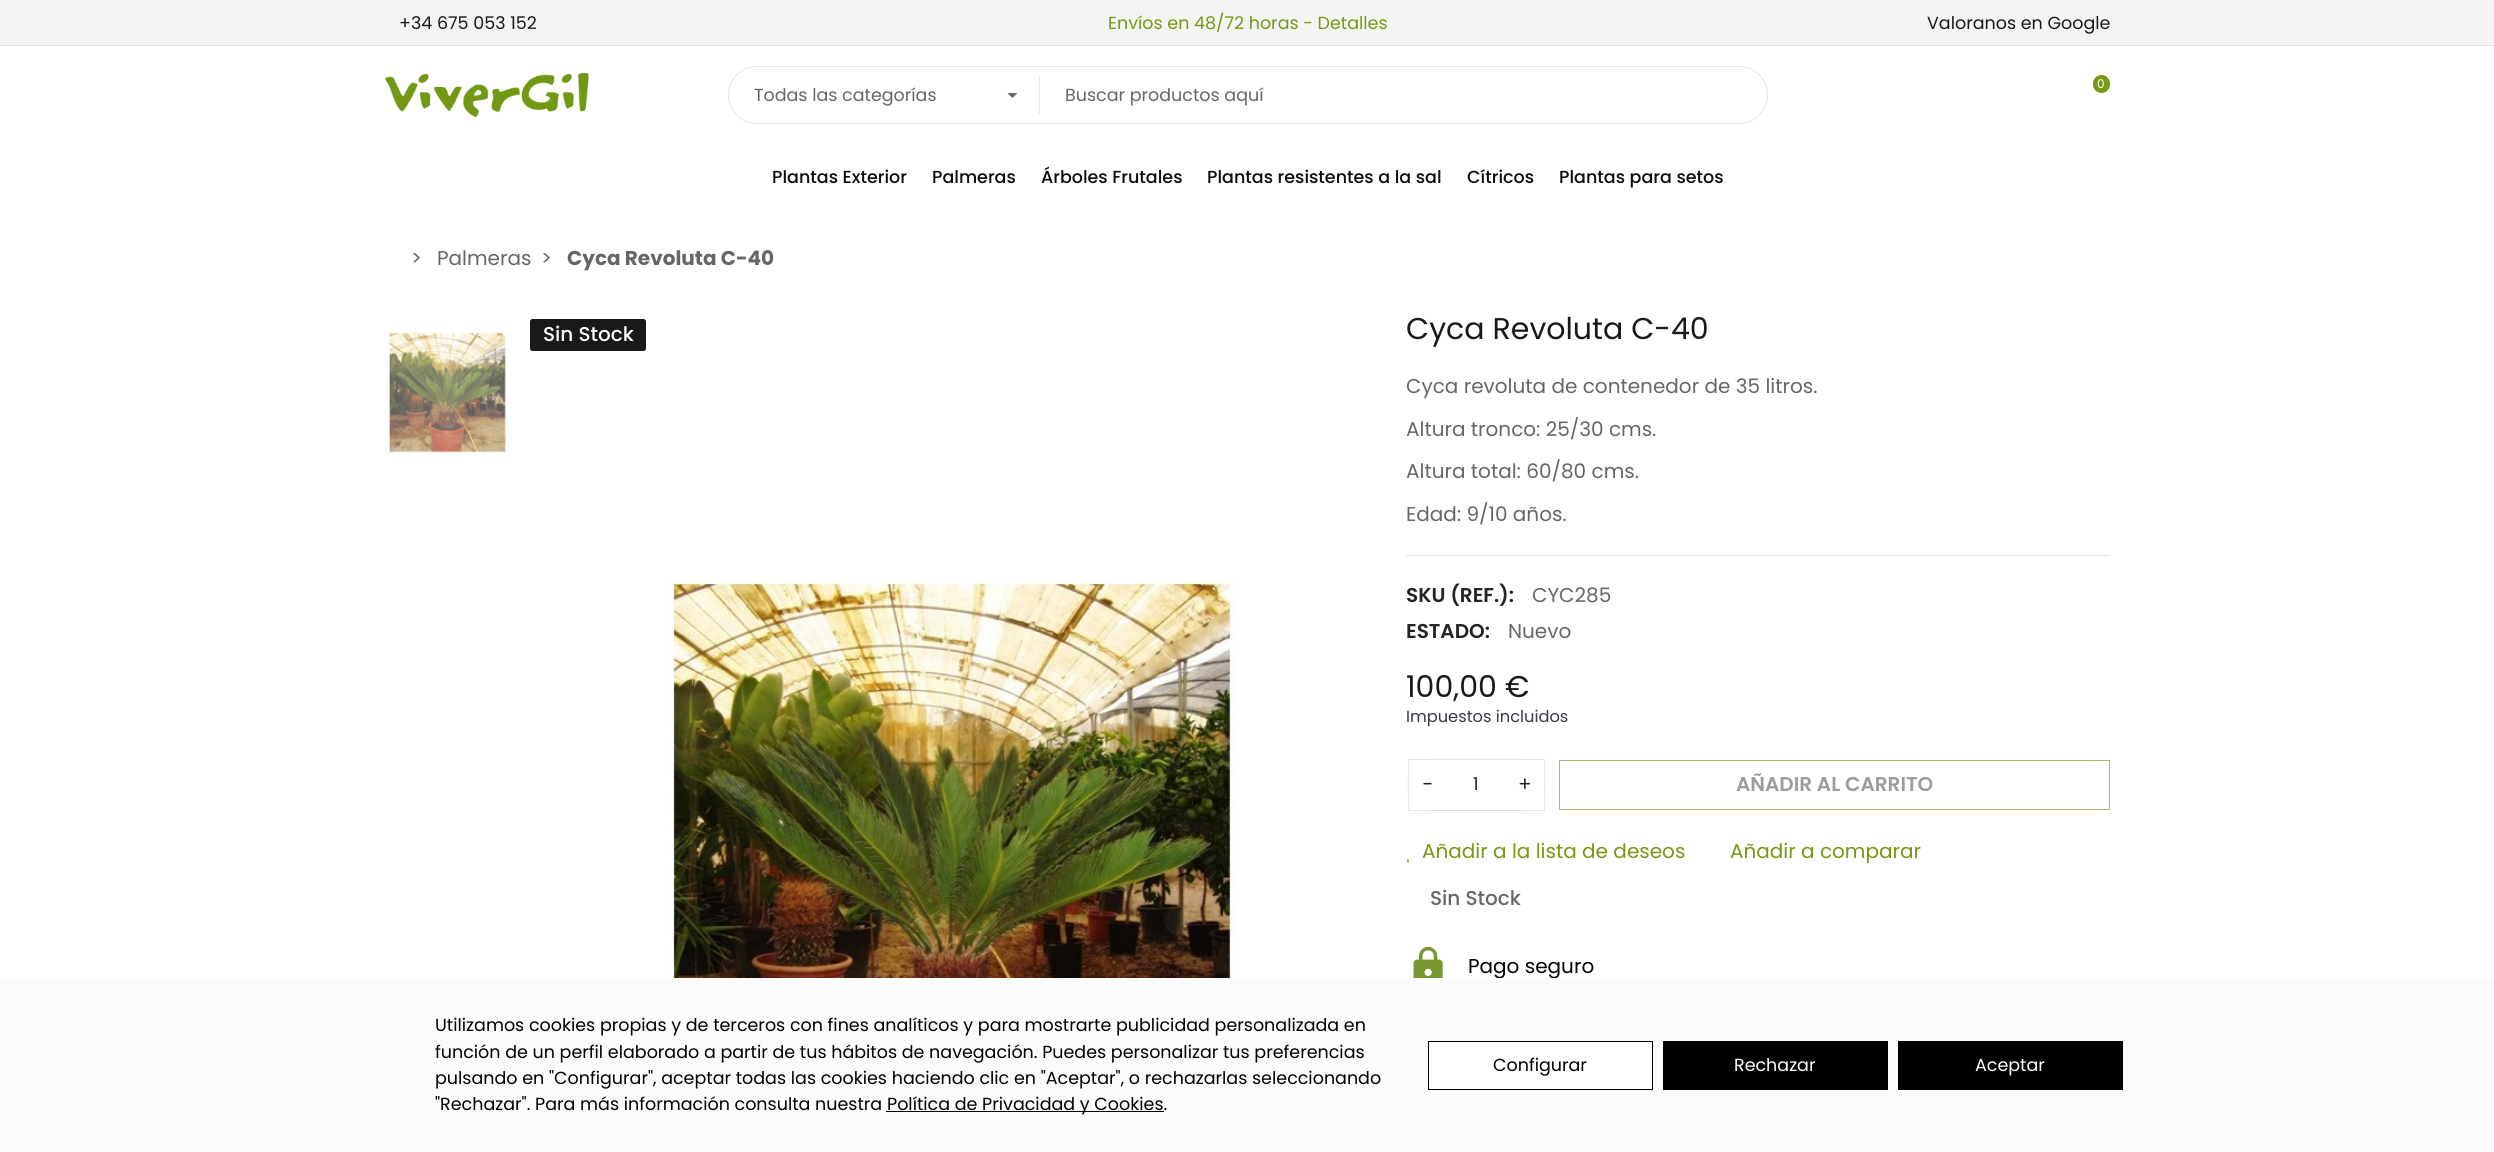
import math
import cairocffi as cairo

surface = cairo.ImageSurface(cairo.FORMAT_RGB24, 2494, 1152)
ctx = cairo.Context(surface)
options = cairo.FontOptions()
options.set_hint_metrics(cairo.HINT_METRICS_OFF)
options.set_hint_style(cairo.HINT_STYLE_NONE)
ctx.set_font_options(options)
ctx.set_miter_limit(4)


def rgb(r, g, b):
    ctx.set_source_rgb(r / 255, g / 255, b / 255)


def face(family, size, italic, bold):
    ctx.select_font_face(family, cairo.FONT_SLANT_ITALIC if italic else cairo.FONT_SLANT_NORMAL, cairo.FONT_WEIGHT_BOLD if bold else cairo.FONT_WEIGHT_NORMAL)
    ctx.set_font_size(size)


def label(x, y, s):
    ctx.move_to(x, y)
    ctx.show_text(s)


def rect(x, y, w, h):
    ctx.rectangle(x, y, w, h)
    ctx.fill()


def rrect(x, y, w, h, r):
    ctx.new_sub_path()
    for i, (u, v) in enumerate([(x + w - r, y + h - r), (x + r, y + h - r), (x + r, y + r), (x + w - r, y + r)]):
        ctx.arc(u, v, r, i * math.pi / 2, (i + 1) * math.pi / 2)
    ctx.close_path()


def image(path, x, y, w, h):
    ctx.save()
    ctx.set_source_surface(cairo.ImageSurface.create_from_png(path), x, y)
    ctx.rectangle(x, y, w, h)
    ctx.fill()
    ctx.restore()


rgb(255, 255, 255)
ctx.paint()
rgb(244, 244, 244)
rect(0, 0, 2494, 45)
rgb(229, 229, 229)
rect(0, 45, 2494, 1)
face('Poppins', 17.5, 0, 0)
rgb(25, 25, 25)
label(399, 29, '+34 675 053 152')
rgb(117, 153, 16)
label(1108, 29, 'Envíos en 48/72 horas - Detalles')
rgb(25, 25, 25)
label(1927, 29, 'Valoranos en Google')
image('image0.png', 385, 72, 204, 46)
rgb(117, 153, 16)
rrect(2093, 75, 17, 18, 8.5)
ctx.fill()
face('Poppins', 12, 0, 0)
rgb(255, 255, 255)
label(2097, 88, '0')
rrect(728.5, 66.5, 1039, 57, 28.5)
rgb(229, 229, 229)
ctx.set_line_width(1)
ctx.stroke()
face('Poppins', 17.5, 0, 0)
rgb(102, 102, 102)
label(754, 101, 'Todas las categorías')
ctx.new_path()
ctx.move_to(1007.5, 93)
ctx.line_to(1017.5, 93)
ctx.line_to(1012.5, 98)
ctx.close_path()
ctx.fill()
rgb(229, 229, 229)
rect(1039, 76, 1, 38)
rgb(102, 102, 102)
label(1065, 101, 'Buscar productos aquí')
face('Poppins Medium', 17.5, 0, 0)
rgb(12, 12, 12)
label(772, 183, 'Plantas Exterior')
label(932, 183, 'Palmeras')
label(1041, 183, 'Árboles Frutales')
label(1207, 183, 'Plantas resistentes a la sal')
label(1467, 183, 'Cítricos')
label(1559, 183, 'Plantas para setos')
face('Poppins', 20, 0, 0)
rgb(102, 102, 102)
label(411, 265, '>')
label(437, 265, 'Palmeras')
label(541, 265, '>')
face('Poppins', 20, 0, 1)
label(567, 265, 'Cyca Revoluta C-40')
image('image1.png', 389, 332, 117, 121)
rgb(25, 25, 25)
rrect(530, 319, 116, 32, 2.5)
ctx.fill()
face('Poppins Medium', 20, 0, 0)
rgb(255, 255, 255)
label(543, 341, 'Sin Stock')
image('image2.png', 665, 578, 571, 400)
face('Poppins', 30, 0, 0)
rgb(25, 25, 25)
label(1406, 339, 'Cyca Revoluta C-40')
face('Poppins', 20, 0, 0)
rgb(102, 102, 102)
label(1406, 393, 'Cyca revoluta de contenedor de 35 litros.')
label(1406, 436, 'Altura tronco: 25/30 cms.')
label(1406, 478, 'Altura total: 60/80 cms.')
label(1406, 521, 'Edad: 9/10 años.')
rgb(229, 229, 229)
rect(1406, 555, 704, 1)
face('Poppins SemiBold', 20, 0, 0)
rgb(35, 35, 35)
label(1406, 602, 'SKU (REF.):')
face('Poppins', 20, 0, 0)
rgb(102, 102, 102)
label(1532, 602, 'CYC285')
face('Poppins SemiBold', 20, 0, 0)
rgb(35, 35, 35)
label(1406, 638, 'ESTADO:')
face('Poppins', 20, 0, 0)
rgb(102, 102, 102)
label(1508, 638, 'Nuevo')
face('Poppins', 30, 0, 0)
rgb(25, 25, 25)
label(1406, 697, '100,00 €')
face('Poppins', 16.25, 0, 0)
rgb(54, 58, 66)
label(1406, 722, 'Impuestos incluidos')
rrect(1406.5, 758.5, 139, 54, 27)
rgb(245, 245, 245)
ctx.stroke()
ctx.rectangle(1408.5, 759.5, 136, 51)
rgb(229, 229, 229)
ctx.stroke()
rgb(255, 255, 255)
rect(1409, 760, 16, 50)
face('Poppins', 20, 0, 0)
rgb(35, 35, 35)
label(1422, 791, '−')
face('Poppins', 17.5, 0, 0)
label(1473, 790, '1')
rgb(255, 255, 255)
rect(1527, 760, 17, 50)
face('Poppins', 20, 0, 0)
rgb(35, 35, 35)
label(1518, 791, '+')
ctx.rectangle(1559.5, 760.5, 550, 49)
rgb(165, 189, 100)
ctx.stroke()
face('Poppins SemiBold', 20, 0, 0)
rgb(156, 156, 156)
label(1736, 791, 'AÑADIR AL CARRITO')
face('Poppins', 20, 0, 0)
rgb(117, 153, 16)
label(1422, 858, 'Añadir a la lista de deseos')
image('image3.png', 1406, 859, 3, 4)
label(1730, 858, 'Añadir a comparar')
face('Poppins Medium', 20, 0, 0)
rgb(102, 102, 102)
label(1430, 905, 'Sin Stock')
image('image4.png', 1413, 946, 30, 32)
face('Poppins', 20, 0, 0)
rgb(0, 0, 0)
label(1468, 973, 'Pago seguro')
rgb(251, 251, 251)
rect(0, 978, 2494, 174)
face('Poppins', 17.5, 0, 0)
rgb(0, 0, 0)
label(435, 1031, 'Utilizamos cookies propias y de terceros con fines analíticos y para mostrarte publicidad personalizada en')
label(435, 1058, 'función de un perfil elaborado a partir de tus hábitos de navegación. Puedes personalizar tus preferencias')
label(435, 1084, 'pulsando en "Configurar", aceptar todas las cookies haciendo clic en "Aceptar", o rechazarlas seleccionando')
label(435, 1110, '"Rechazar". Para más información consulta nuestra')
rect(886, 1111, 278, 1)
label(887, 1110, 'Política de Privacidad y Cookies.')
rgb(255, 255, 255)
ctx.rectangle(1428.5, 1041.5, 224, 48)
ctx.fill_preserve()
rgb(0, 0, 0)
ctx.stroke()
label(1493, 1071, 'Configurar')
rect(1663, 1041, 225, 49)
rgb(255, 255, 255)
label(1734, 1071, 'Rechazar')
rgb(0, 0, 0)
rect(1898, 1041, 225, 49)
rgb(255, 255, 255)
label(1975, 1071, 'Aceptar')
surface.write_to_png('render.png')
